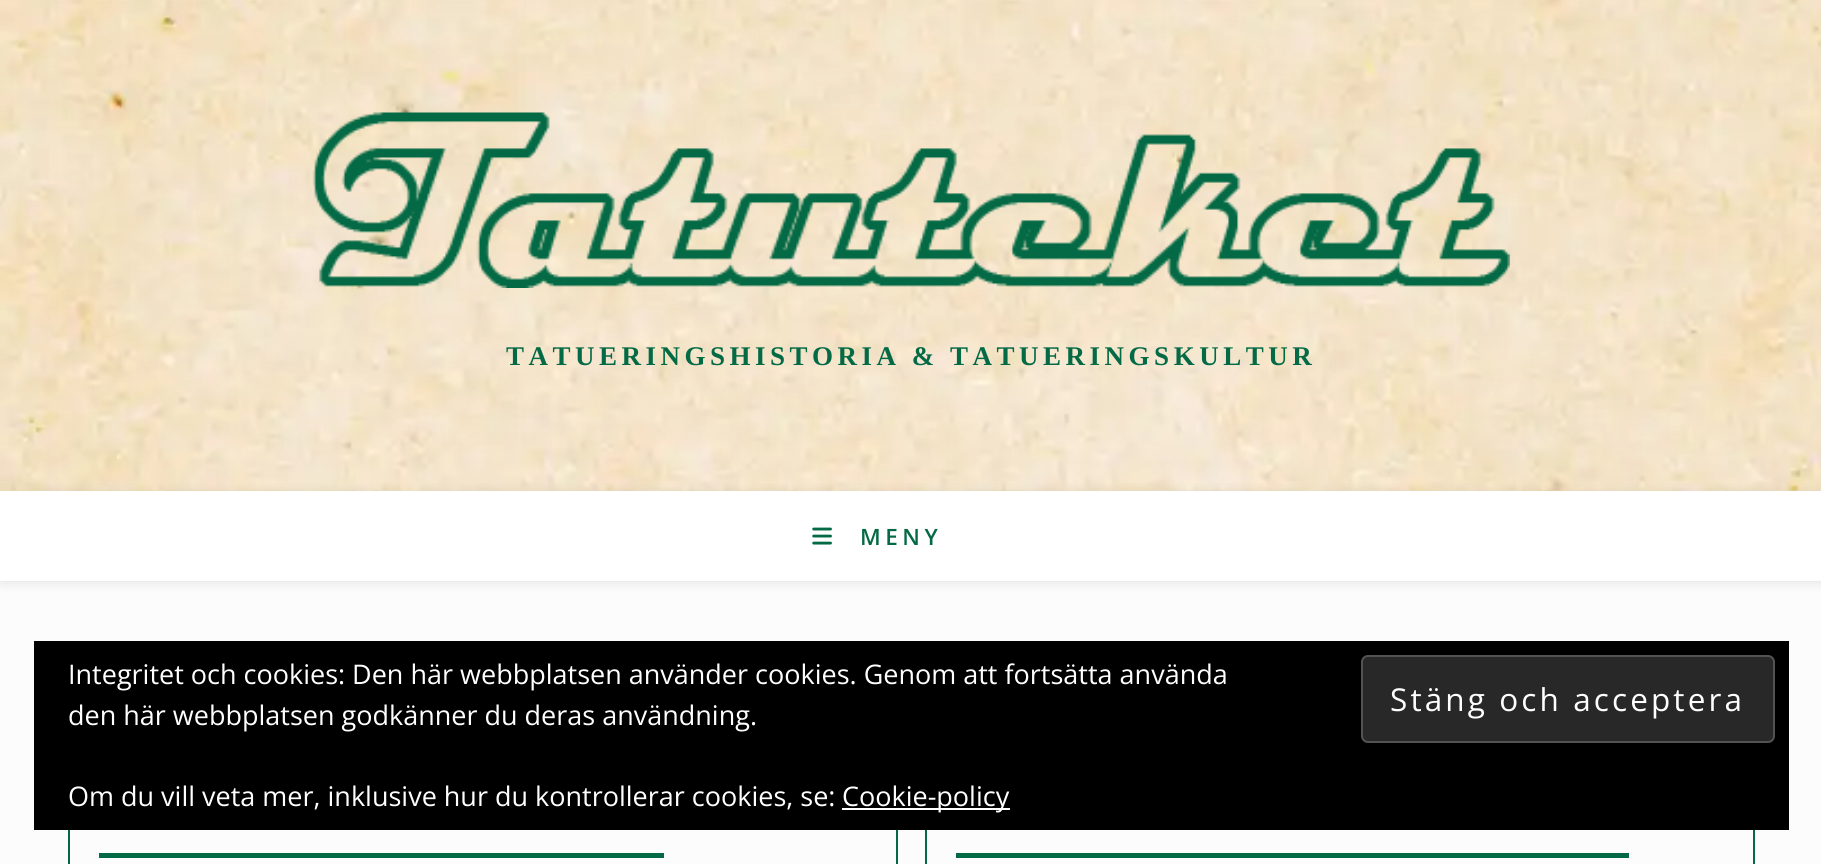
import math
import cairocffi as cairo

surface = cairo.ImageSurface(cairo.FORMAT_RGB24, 1821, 864)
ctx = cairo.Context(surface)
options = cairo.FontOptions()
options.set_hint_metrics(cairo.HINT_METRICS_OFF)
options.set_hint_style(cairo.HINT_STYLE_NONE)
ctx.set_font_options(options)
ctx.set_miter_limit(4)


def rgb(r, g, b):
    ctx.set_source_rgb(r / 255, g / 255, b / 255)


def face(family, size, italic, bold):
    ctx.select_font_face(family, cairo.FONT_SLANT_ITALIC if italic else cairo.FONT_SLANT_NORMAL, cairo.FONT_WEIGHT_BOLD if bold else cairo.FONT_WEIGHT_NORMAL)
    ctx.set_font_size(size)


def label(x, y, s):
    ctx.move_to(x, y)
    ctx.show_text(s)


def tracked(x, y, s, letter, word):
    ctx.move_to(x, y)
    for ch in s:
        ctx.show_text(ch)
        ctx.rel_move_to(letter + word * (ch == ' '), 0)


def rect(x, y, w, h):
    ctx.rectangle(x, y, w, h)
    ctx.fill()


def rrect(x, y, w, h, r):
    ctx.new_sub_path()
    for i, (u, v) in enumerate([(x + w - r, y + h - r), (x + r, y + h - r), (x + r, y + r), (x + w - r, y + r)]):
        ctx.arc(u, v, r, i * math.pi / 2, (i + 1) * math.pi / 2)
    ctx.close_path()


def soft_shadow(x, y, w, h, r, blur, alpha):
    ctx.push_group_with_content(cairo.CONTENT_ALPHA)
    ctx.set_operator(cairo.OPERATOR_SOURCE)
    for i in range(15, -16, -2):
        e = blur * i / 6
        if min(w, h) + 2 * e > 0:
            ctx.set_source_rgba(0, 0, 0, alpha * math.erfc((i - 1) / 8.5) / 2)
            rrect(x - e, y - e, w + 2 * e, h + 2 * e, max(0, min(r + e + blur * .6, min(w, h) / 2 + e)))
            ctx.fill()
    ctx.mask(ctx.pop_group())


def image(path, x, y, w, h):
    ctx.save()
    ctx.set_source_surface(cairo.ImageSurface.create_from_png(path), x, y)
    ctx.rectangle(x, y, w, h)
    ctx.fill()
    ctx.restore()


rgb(252, 252, 252)
ctx.paint()
image('image0.png', 0, 0, 1821, 491)
image('image1.png', 312, 112, 1198, 176)
face('Liberation Serif', 27, 0, 1)
rgb(4, 106, 69)
tracked(506, 365, 'TATUERINGSHISTORIA & TATUERINGSKULTUR', 4.5, 0)
rgb(0, 0, 0)
soft_shadow(0, 493, 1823, 90, 0, 5.5, 0.1)
rgb(255, 255, 255)
rect(0, 491, 1821, 90)
image('image2.png', 812, 527, 20, 18)
face('Open Sans SemiBold', 22.5, 0, 0)
rgb(4, 106, 69)
tracked(860, 545, 'MENY', 4.5, 0)
ctx.rectangle(69, 694, 828, 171)
ctx.stroke()
rect(99, 853, 565, 5)
ctx.rectangle(926, 694, 828, 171)
ctx.stroke()
rect(956, 853, 673, 5)
rgb(0, 0, 0)
rect(34, 641, 1755, 189)
face('Open Sans', 27, 0, 0)
rgb(255, 255, 255)
label(68, 684, 'Integritet och cookies: Den här webbplatsen använder cookies. Genom att fortsätta använda')
label(68, 725, 'den här webbplatsen godkänner du deras användning.')
rgb(40, 40, 40)
rrect(1362, 656, 412, 86, 6)
ctx.fill_preserve()
rgb(83, 83, 83)
ctx.stroke()
face('Open Sans', 31.5, 0, 0)
rgb(255, 255, 255)
tracked(1390, 711, 'Stäng och acceptera', 3.1, 0)
face('Open Sans', 27, 0, 0)
label(68, 806, 'Om du vill veta mer, inklusive hur du kontrollerar cookies, se:')
rect(842, 808, 168, 2)
label(842, 806, 'Cookie-policy')
surface.write_to_png('render.png')
